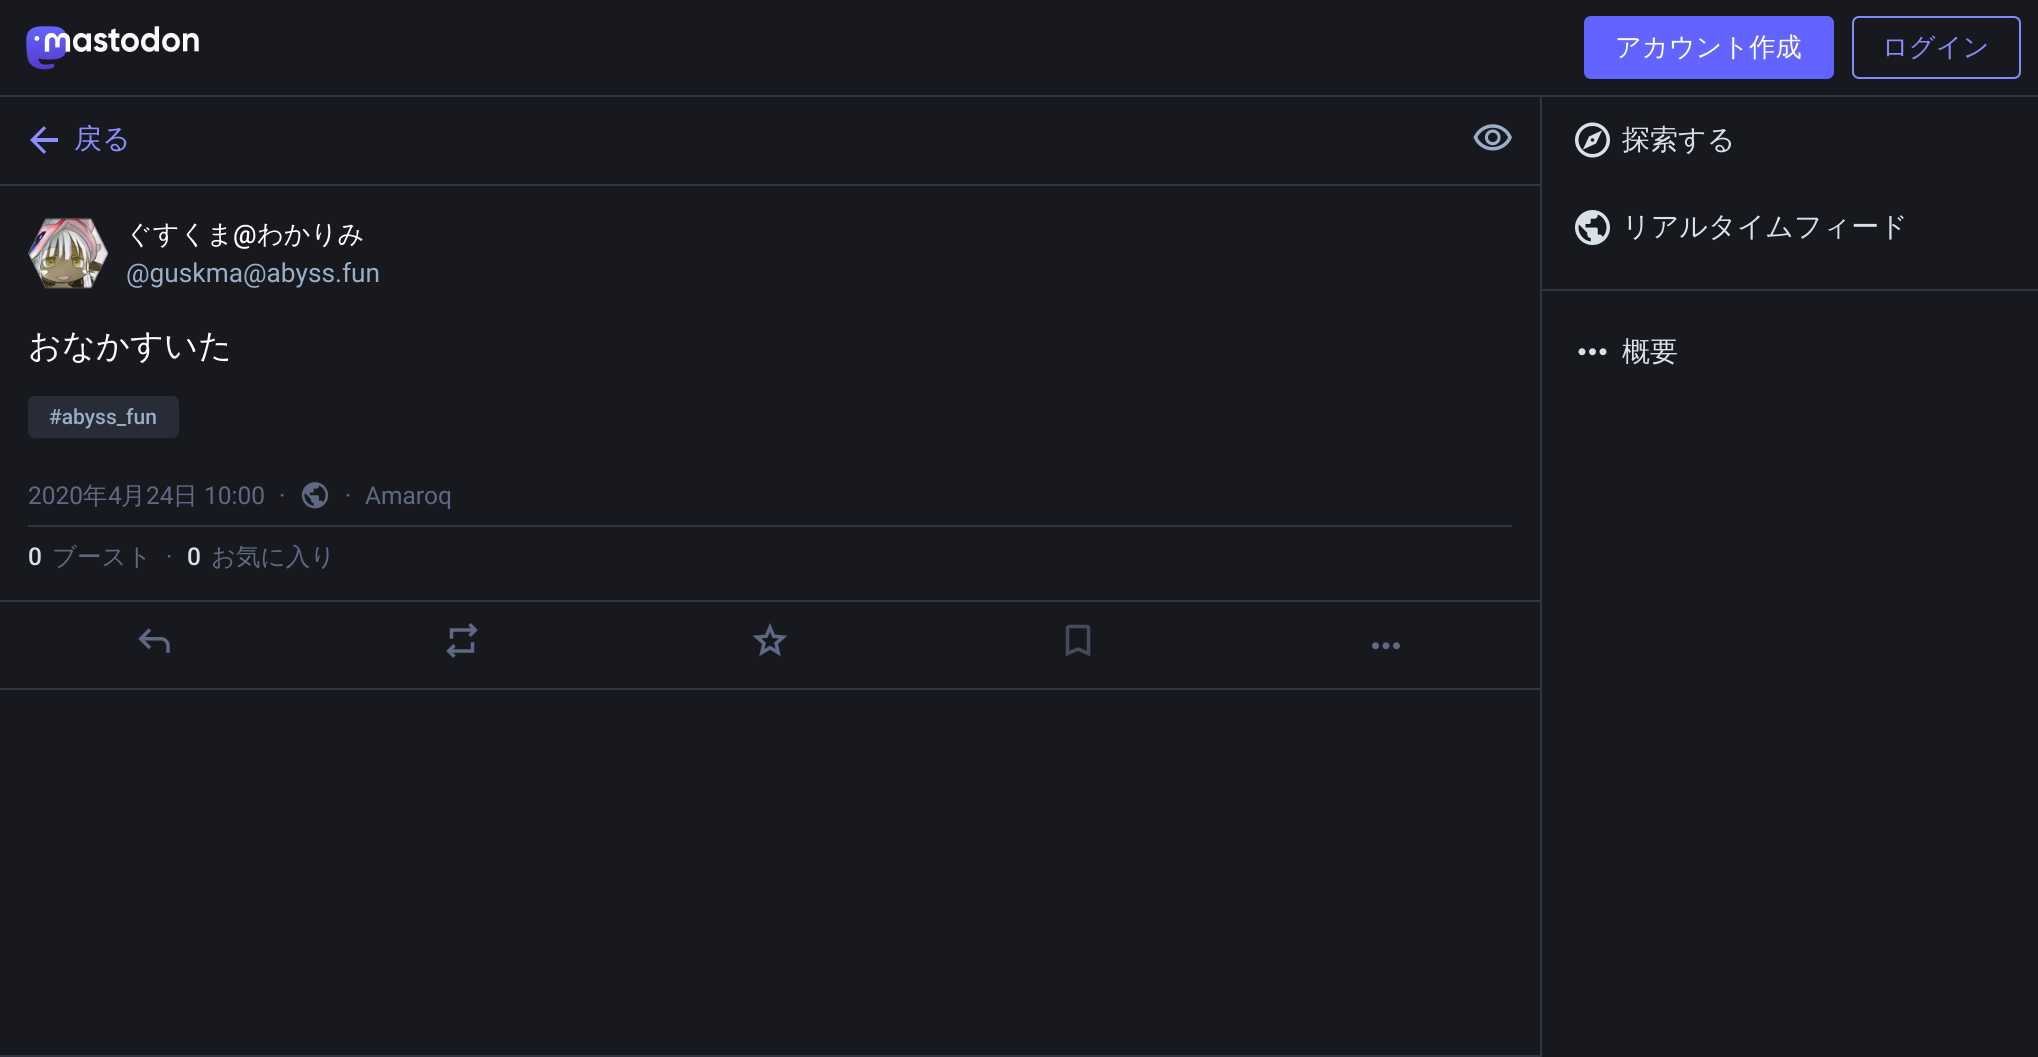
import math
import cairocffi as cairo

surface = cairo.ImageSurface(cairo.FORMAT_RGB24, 2038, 1057)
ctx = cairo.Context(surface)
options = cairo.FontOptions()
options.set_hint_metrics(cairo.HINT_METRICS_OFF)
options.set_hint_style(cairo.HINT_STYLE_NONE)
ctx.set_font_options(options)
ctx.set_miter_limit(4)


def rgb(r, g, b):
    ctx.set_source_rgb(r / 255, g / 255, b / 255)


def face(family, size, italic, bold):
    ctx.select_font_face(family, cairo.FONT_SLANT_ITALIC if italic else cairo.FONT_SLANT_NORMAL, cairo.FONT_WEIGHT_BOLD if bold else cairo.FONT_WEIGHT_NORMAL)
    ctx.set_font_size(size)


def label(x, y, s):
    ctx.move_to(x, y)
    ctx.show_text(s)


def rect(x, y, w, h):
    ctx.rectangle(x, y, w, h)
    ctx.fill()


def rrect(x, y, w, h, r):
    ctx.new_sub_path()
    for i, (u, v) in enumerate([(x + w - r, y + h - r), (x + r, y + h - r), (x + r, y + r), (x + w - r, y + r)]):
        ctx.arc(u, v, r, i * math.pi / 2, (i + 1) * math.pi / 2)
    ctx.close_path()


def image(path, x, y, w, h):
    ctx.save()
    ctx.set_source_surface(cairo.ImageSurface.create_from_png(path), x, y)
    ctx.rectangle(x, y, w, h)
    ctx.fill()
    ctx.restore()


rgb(23, 25, 31)
ctx.paint()
rgb(49, 53, 67)
rect(1540, 96, 2, 961)
rect(0, 95, 2038, 2)
image('image0.png', 26, 26, 173, 44)
rgb(99, 100, 255)
rrect(1584, 16, 250, 63, 7)
ctx.fill()
face('WenQuanYi Zen Hei Medium', 26.25, 0, 0)
rgb(255, 255, 255)
label(1615, 56, 'アカウント作成')
rrect(1853, 17, 167, 61, 6)
rgb(133, 138, 250)
ctx.stroke()
label(1882, 56, 'ログイン')
rgb(49, 53, 67)
rect(0, 184, 1540, 2)
rgb(140, 141, 255)
ctx.new_path()
ctx.move_to(36.5, 142)
ctx.line_to(46, 151.5)
ctx.line_to(44, 154)
ctx.line_to(30, 140)
ctx.line_to(44, 126)
ctx.line_to(46, 128.5)
ctx.line_to(36.5, 138)
ctx.line_to(58, 138)
ctx.line_to(58, 142)
ctx.close_path()
ctx.fill()
face('WenQuanYi Zen Hei Medium', 28, 0, 0)
label(74, 148, '戻る')
image('image1.png', 1473, 124, 39, 27)
rgb(49, 53, 67)
rect(0, 1055, 1540, 2)
image('image2.png', 28, 218, 81, 71)
face('WenQuanYi Zen Hei Medium', 26.25, 0, 0)
rgb(255, 255, 255)
label(126, 243, 'ぐすくま')
face('Roboto Medium', 26.25, 0, 0)
label(233, 243, '@')
face('WenQuanYi Zen Hei Medium', 26.25, 0, 0)
label(257, 243, 'わかりみ')
face('Roboto', 26.25, 0, 0)
rgb(155, 174, 200)
label(126, 282, '@guskma@abyss.fun')
face('WenQuanYi Zen Hei Medium', 33.25, 0, 0)
rgb(255, 255, 255)
label(28, 357, 'おなかすいた')
rgb(40, 44, 55)
rrect(28, 396, 151, 42, 7)
ctx.fill()
face('Roboto Medium', 21, 0, 0)
rgb(155, 174, 200)
label(49, 424, '#abyss_fun')
rgb(49, 53, 67)
rect(28, 525, 1484, 2)
face('Roboto', 24.5, 0, 0)
rgb(96, 105, 132)
label(28, 504, '2020')
face('WenQuanYi Zen Hei Medium', 24.5, 0, 0)
label(83, 504, '年')
face('Roboto', 24.5, 0, 0)
label(108, 504, '4')
face('WenQuanYi Zen Hei Medium', 24.5, 0, 0)
label(121, 504, '月')
face('Roboto', 24.5, 0, 0)
label(146, 504, '24')
face('WenQuanYi Zen Hei Medium', 24.5, 0, 0)
label(173, 504, '日')
face('Roboto', 24.5, 0, 0)
label(204, 504, '10:00')
label(279, 504, '·')
image('image3.png', 301, 482, 28, 27)
label(345, 504, '·')
label(365, 504, 'Amaroq')
face('Roboto Medium', 24.5, 0, 0)
rgb(217, 225, 232)
label(28, 565, '0')
face('WenQuanYi Zen Hei Medium', 24.5, 0, 0)
rgb(96, 105, 132)
label(52, 565, 'ブースト')
face('Roboto', 24.5, 0, 0)
label(166, 565, '·')
face('Roboto Medium', 24.5, 0, 0)
rgb(217, 225, 232)
label(187, 565, '0')
face('WenQuanYi Zen Hei Medium', 24.5, 0, 0)
rgb(96, 105, 132)
label(211, 565, 'お気に入り')
rgb(49, 53, 67)
rect(0, 600, 1540, 2)
rect(0, 688, 1540, 2)
image('image4.png', 138, 628, 32, 25)
image('image5.png', 446, 623, 32, 35)
image('image6.png', 752, 623, 36, 34)
image('image7.png', 1065, 624, 26, 32)
image('image8.png', 1372, 642, 28, 8)
image('image9.png', 1575, 122, 35, 36)
face('WenQuanYi Zen Hei Medium', 28, 0, 0)
rgb(217, 225, 232)
label(1622, 149, '探索する')
image('image10.png', 1575, 210, 35, 35)
label(1622, 236, 'リアルタイムフィード')
rgb(49, 53, 67)
rect(1542, 289, 496, 2)
image('image11.png', 1578, 348, 29, 8)
rgb(217, 225, 232)
label(1622, 361, '概要')
surface.write_to_png('render.png')
